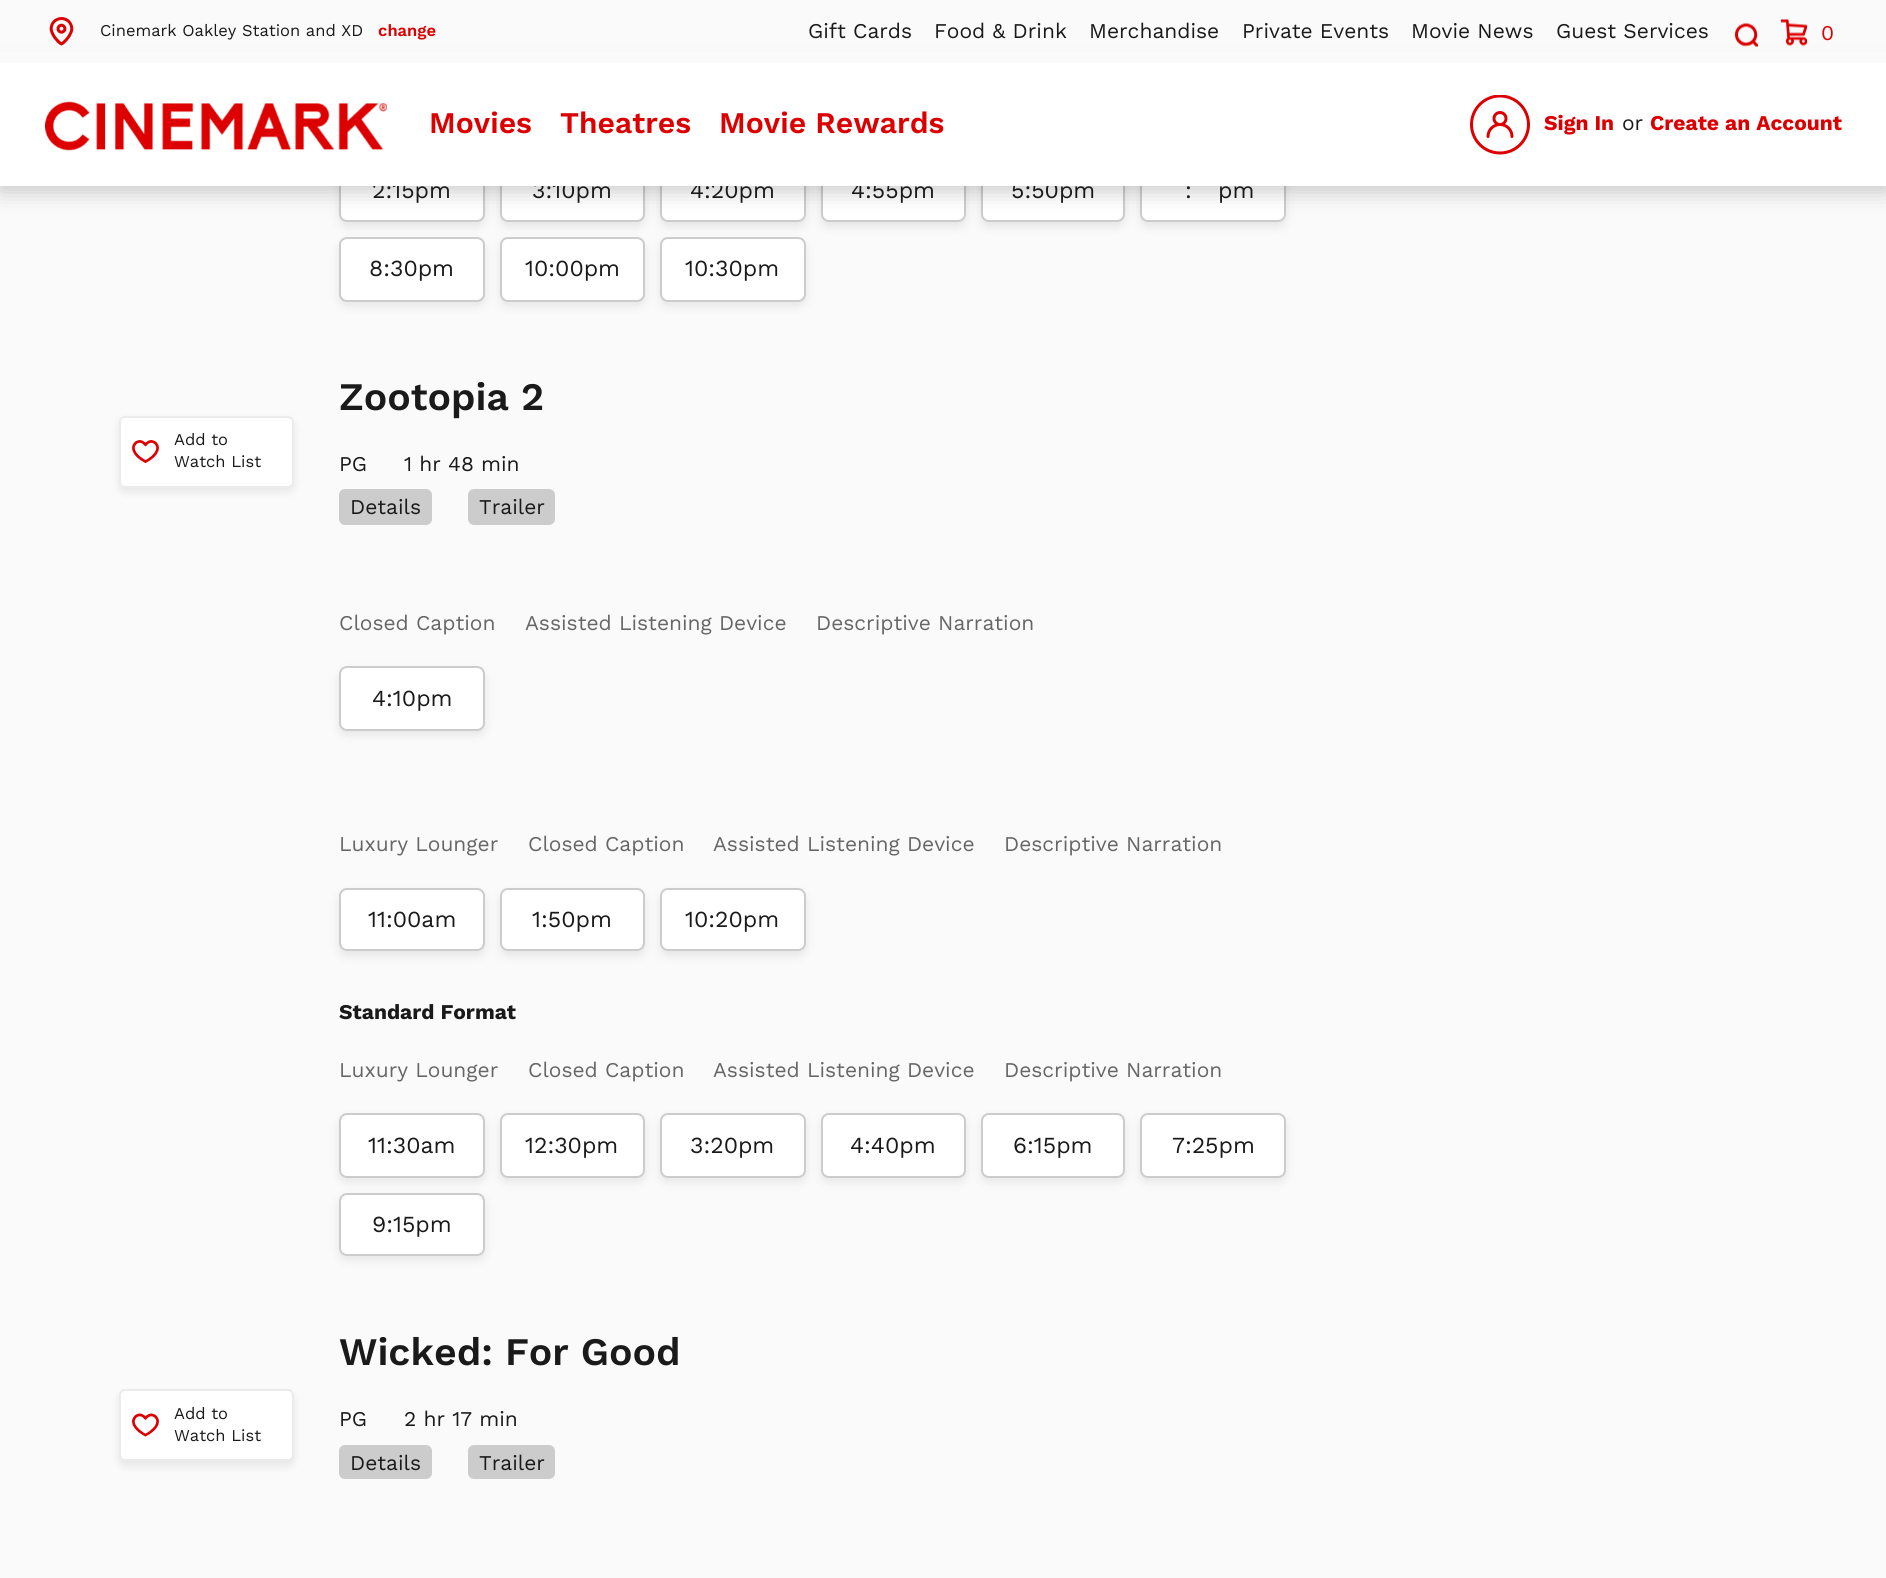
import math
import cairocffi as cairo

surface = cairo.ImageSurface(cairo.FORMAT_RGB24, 1886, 1578)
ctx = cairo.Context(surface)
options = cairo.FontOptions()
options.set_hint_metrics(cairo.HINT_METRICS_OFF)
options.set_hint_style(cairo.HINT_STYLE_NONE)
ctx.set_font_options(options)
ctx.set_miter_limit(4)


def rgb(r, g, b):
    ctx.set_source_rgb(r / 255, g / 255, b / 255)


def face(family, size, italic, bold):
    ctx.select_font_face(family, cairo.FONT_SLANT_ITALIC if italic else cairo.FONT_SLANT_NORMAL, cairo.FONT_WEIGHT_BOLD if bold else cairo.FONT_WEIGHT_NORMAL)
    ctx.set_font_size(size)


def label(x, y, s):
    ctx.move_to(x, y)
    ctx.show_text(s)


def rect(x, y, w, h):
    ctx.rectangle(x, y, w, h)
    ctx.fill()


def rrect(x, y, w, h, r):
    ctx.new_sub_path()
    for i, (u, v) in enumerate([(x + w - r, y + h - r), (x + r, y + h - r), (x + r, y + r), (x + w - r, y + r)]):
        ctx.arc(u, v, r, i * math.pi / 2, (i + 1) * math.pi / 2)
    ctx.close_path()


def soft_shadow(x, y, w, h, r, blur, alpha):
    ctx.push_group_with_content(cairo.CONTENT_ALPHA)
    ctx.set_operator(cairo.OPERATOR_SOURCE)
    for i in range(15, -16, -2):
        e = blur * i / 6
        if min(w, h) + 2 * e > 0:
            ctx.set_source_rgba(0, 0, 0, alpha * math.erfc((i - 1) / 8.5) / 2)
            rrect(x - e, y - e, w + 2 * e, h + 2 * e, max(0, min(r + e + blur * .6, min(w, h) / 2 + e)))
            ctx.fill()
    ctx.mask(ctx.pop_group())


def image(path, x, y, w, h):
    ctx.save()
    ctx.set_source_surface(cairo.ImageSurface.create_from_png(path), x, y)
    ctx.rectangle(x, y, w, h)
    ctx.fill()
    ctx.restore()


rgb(250, 250, 250)
ctx.paint()
rgb(230, 230, 230)
soft_shadow(339, 164, 146, 63, 8, 4.5, 1)
rgb(255, 255, 255)
rrect(340, 160, 144, 61, 7)
ctx.fill_preserve()
rgb(204, 204, 204)
ctx.stroke()
rgb(230, 230, 230)
soft_shadow(500, 164, 145, 63, 8, 4.5, 1)
rgb(255, 255, 255)
rrect(501, 160, 143, 61, 7)
ctx.fill_preserve()
rgb(204, 204, 204)
ctx.stroke()
rgb(230, 230, 230)
soft_shadow(660, 164, 146, 63, 8, 4.5, 1)
rgb(255, 255, 255)
rrect(661, 160, 144, 61, 7)
ctx.fill_preserve()
rgb(204, 204, 204)
ctx.stroke()
rgb(230, 230, 230)
soft_shadow(821, 164, 145, 63, 8, 4.5, 1)
rgb(255, 255, 255)
rrect(822, 160, 143, 61, 7)
ctx.fill_preserve()
rgb(204, 204, 204)
ctx.stroke()
rgb(230, 230, 230)
soft_shadow(981, 164, 144, 63, 8, 4.5, 1)
rgb(255, 255, 255)
rrect(982, 160, 142, 61, 7)
ctx.fill_preserve()
rgb(204, 204, 204)
ctx.stroke()
rgb(230, 230, 230)
soft_shadow(1140, 164, 146, 63, 8, 4.5, 1)
rgb(255, 255, 255)
rrect(1141, 160, 144, 61, 7)
ctx.fill_preserve()
rgb(204, 204, 204)
ctx.stroke()
rgb(0, 0, 0)
soft_shadow(0, 69, 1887, 123, 0, 10.5, 0.2)
rgb(250, 250, 250)
rect(0, 52, 1886, 11)
image('image0.png', 49, 17, 25, 29)
face('Work Sans', 16.5, 0, 0)
rgb(26, 26, 26)
label(100, 36, 'Cinemark Oakley Station and XD')
face('Work Sans SemiBold', 16.5, 0, 0)
rgb(221, 0, 0)
label(378, 36, 'change')
face('Work Sans', 21, 0, 0)
rgb(26, 26, 26)
label(808, 38, 'Gift Cards')
label(934, 38, 'Food & Drink')
label(1089, 38, 'Merchandise')
label(1242, 38, 'Private Events')
label(1411, 38, 'Movie News')
label(1556, 38, 'Guest Services')
image('image1.png', 1735, 23, 23, 24)
image('image2.png', 1780, 19, 28, 27)
rgb(221, 0, 0)
label(1821, 40, '0')
face('Work Sans', 23, 0, 0)
rgb(26, 26, 26)
label(372, 198, '2:15pm')
label(532, 198, '3:10pm')
label(690, 198, '4:20pm')
label(851, 198, '4:55pm')
label(1011, 198, '5:50pm')
rgb(255, 255, 255)
rect(0, 63, 1886, 123)
image('image3.png', 45, 101, 342, 50)
face('Work Sans SemiBold', 30, 0, 0)
rgb(221, 0, 0)
label(429, 133, 'Movies')
label(560, 133, 'Theatres')
label(719, 133, 'Movie Rewards')
image('image4.png', 1470, 95, 60, 60)
face('Work Sans', 21, 0, 1)
label(1544, 130, 'Sign In')
face('Work Sans', 21, 0, 0)
rgb(26, 26, 26)
label(1622, 130, 'or')
face('Work Sans', 21, 0, 1)
rgb(221, 0, 0)
label(1650, 130, 'Create an Account')
face('Work Sans', 23, 0, 0)
rgb(26, 26, 26)
label(1185, 198, ':')
label(1218, 198, 'pm')
rgb(230, 230, 230)
soft_shadow(339, 242, 146, 64, 8, 4.5, 1)
rgb(255, 255, 255)
rrect(340, 238, 144, 63, 7)
ctx.fill_preserve()
rgb(204, 204, 204)
ctx.stroke()
rgb(26, 26, 26)
label(369, 276, '8:30pm')
rgb(230, 230, 230)
soft_shadow(500, 242, 145, 64, 8, 4.5, 1)
rgb(255, 255, 255)
rrect(501, 238, 143, 63, 7)
ctx.fill_preserve()
rgb(204, 204, 204)
ctx.stroke()
rgb(26, 26, 26)
label(525, 276, '10:00pm')
rgb(230, 230, 230)
soft_shadow(660, 242, 146, 64, 8, 4.5, 1)
rgb(255, 255, 255)
rrect(661, 238, 144, 63, 7)
ctx.fill_preserve()
rgb(204, 204, 204)
ctx.stroke()
rgb(26, 26, 26)
label(685, 276, '10:30pm')
rgb(0, 0, 0)
soft_shadow(119, 420, 175, 72, 6, 4.5, 0.08)
rgb(255, 255, 255)
rrect(119, 416, 175, 72, 6)
ctx.fill()
rrect(120, 417, 173, 70, 5)
ctx.set_source_rgba(0, 0, 0, 0.08)
ctx.stroke()
image('image5.png', 132, 440, 27, 23)
face('Work Sans', 16.5, 0, 0)
rgb(26, 26, 26)
label(174, 445, 'Add to')
label(174, 467, 'Watch List')
face('Work Sans SemiBold', 39, 0, 0)
label(339, 410, 'Zootopia 2')
face('Work Sans', 21, 0, 0)
label(339, 471, 'PG')
label(404, 471, '1 hr 48 min')
rgb(204, 204, 204)
rrect(339, 489, 93, 36, 6)
ctx.fill()
rgb(26, 26, 26)
label(350, 514, 'Details')
rgb(204, 204, 204)
rrect(468, 489, 87, 36, 6)
ctx.fill()
rgb(26, 26, 26)
label(479, 514, 'Trailer')
rgb(102, 102, 102)
label(339, 630, 'Closed Caption')
label(525, 630, 'Assisted Listening Device')
label(816, 630, 'Descriptive Narration')
rgb(230, 230, 230)
soft_shadow(339, 671, 146, 64, 8, 4.5, 1)
rgb(255, 255, 255)
rrect(340, 667, 144, 63, 7)
ctx.fill_preserve()
rgb(204, 204, 204)
ctx.stroke()
face('Work Sans', 23, 0, 0)
rgb(26, 26, 26)
label(372, 706, '4:10pm')
face('Work Sans', 21, 0, 0)
rgb(102, 102, 102)
label(339, 851, 'Luxury Lounger')
label(528, 851, 'Closed Caption')
label(713, 851, 'Assisted Listening Device')
label(1004, 851, 'Descriptive Narration')
rgb(230, 230, 230)
soft_shadow(339, 893, 146, 63, 8, 4.5, 1)
rgb(255, 255, 255)
rrect(340, 889, 144, 61, 7)
ctx.fill_preserve()
rgb(204, 204, 204)
ctx.stroke()
face('Work Sans', 23, 0, 0)
rgb(26, 26, 26)
label(368, 927, '11:00am')
rgb(230, 230, 230)
soft_shadow(500, 893, 145, 63, 8, 4.5, 1)
rgb(255, 255, 255)
rrect(501, 889, 143, 61, 7)
ctx.fill_preserve()
rgb(204, 204, 204)
ctx.stroke()
rgb(26, 26, 26)
label(532, 927, '1:50pm')
rgb(230, 230, 230)
soft_shadow(660, 893, 146, 63, 8, 4.5, 1)
rgb(255, 255, 255)
rrect(661, 889, 144, 61, 7)
ctx.fill_preserve()
rgb(204, 204, 204)
ctx.stroke()
rgb(26, 26, 26)
label(685, 927, '10:20pm')
face('Work Sans', 21, 0, 1)
label(339, 1019, 'Standard Format')
face('Work Sans', 21, 0, 0)
rgb(102, 102, 102)
label(339, 1077, 'Luxury Lounger')
label(528, 1077, 'Closed Caption')
label(713, 1077, 'Assisted Listening Device')
label(1004, 1077, 'Descriptive Narration')
rgb(230, 230, 230)
soft_shadow(339, 1118, 146, 64, 8, 4.5, 1)
rgb(255, 255, 255)
rrect(340, 1114, 144, 63, 7)
ctx.fill_preserve()
rgb(204, 204, 204)
ctx.stroke()
face('Work Sans', 23, 0, 0)
rgb(26, 26, 26)
label(368, 1153, '11:30am')
rgb(230, 230, 230)
soft_shadow(500, 1118, 145, 64, 8, 4.5, 1)
rgb(255, 255, 255)
rrect(501, 1114, 143, 63, 7)
ctx.fill_preserve()
rgb(204, 204, 204)
ctx.stroke()
rgb(26, 26, 26)
label(525, 1153, '12:30pm')
rgb(230, 230, 230)
soft_shadow(660, 1118, 146, 64, 8, 4.5, 1)
rgb(255, 255, 255)
rrect(661, 1114, 144, 63, 7)
ctx.fill_preserve()
rgb(204, 204, 204)
ctx.stroke()
rgb(26, 26, 26)
label(690, 1153, '3:20pm')
rgb(230, 230, 230)
soft_shadow(821, 1118, 145, 64, 8, 4.5, 1)
rgb(255, 255, 255)
rrect(822, 1114, 143, 63, 7)
ctx.fill_preserve()
rgb(204, 204, 204)
ctx.stroke()
rgb(26, 26, 26)
label(850, 1153, '4:40pm')
rgb(230, 230, 230)
soft_shadow(981, 1118, 144, 64, 8, 4.5, 1)
rgb(255, 255, 255)
rrect(982, 1114, 142, 63, 7)
ctx.fill_preserve()
rgb(204, 204, 204)
ctx.stroke()
rgb(26, 26, 26)
label(1013, 1153, '6:15pm')
rgb(230, 230, 230)
soft_shadow(1140, 1118, 146, 64, 8, 4.5, 1)
rgb(255, 255, 255)
rrect(1141, 1114, 144, 63, 7)
ctx.fill_preserve()
rgb(204, 204, 204)
ctx.stroke()
rgb(26, 26, 26)
label(1172, 1153, '7:25pm')
rgb(230, 230, 230)
soft_shadow(339, 1197, 146, 63, 8, 4.5, 1)
rgb(255, 255, 255)
rrect(340, 1194, 144, 61, 7)
ctx.fill_preserve()
rgb(204, 204, 204)
ctx.stroke()
rgb(26, 26, 26)
label(372, 1232, '9:15pm')
rgb(0, 0, 0)
soft_shadow(119, 1394, 175, 72, 6, 4.5, 0.08)
rgb(255, 255, 255)
rrect(120, 1390, 173, 70, 5)
ctx.fill_preserve()
rgb(235, 235, 235)
ctx.stroke()
image('image6.png', 132, 1413, 27, 24)
face('Work Sans', 16.5, 0, 0)
rgb(26, 26, 26)
label(174, 1419, 'Add to')
label(174, 1441, 'Watch List')
face('Work Sans SemiBold', 39, 0, 0)
label(339, 1365, 'Wicked: For Good')
face('Work Sans', 21, 0, 0)
label(339, 1426, 'PG')
label(404, 1426, '2 hr 17 min')
rgb(204, 204, 204)
rrect(339, 1445, 93, 34, 6)
ctx.fill()
rgb(26, 26, 26)
label(350, 1470, 'Details')
rgb(204, 204, 204)
rrect(468, 1445, 87, 34, 6)
ctx.fill()
rgb(26, 26, 26)
label(479, 1470, 'Trailer')
surface.write_to_png('render.png')
